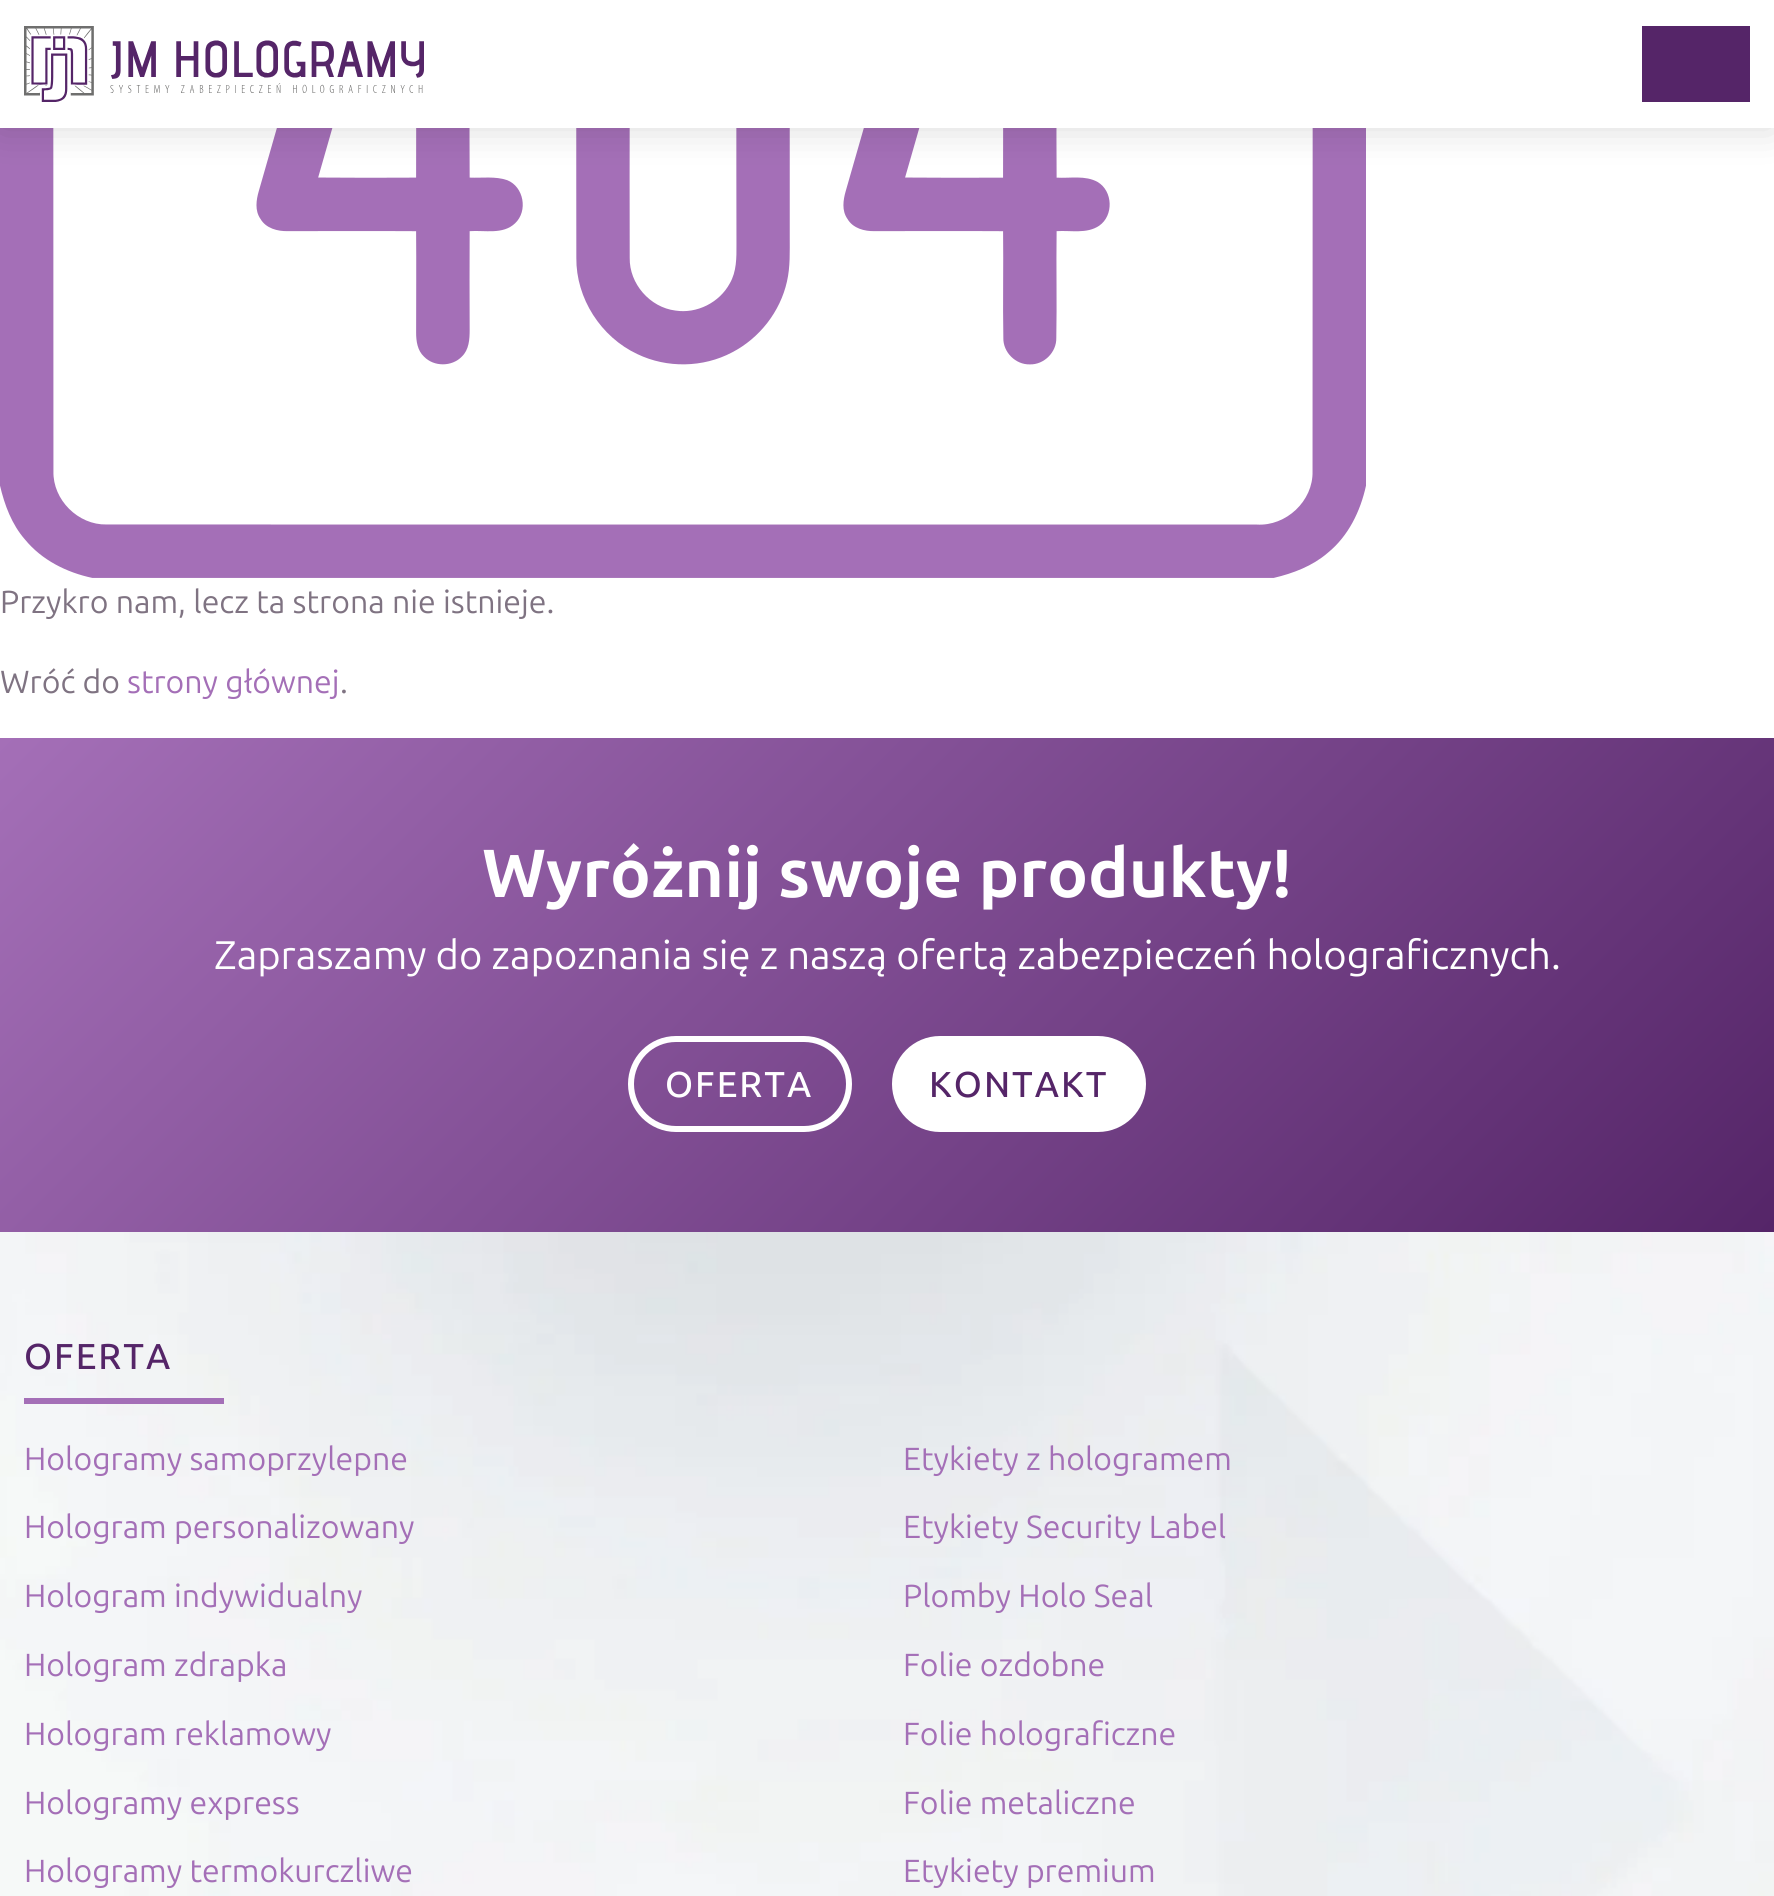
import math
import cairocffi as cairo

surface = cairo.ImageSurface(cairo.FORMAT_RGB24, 1774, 1896)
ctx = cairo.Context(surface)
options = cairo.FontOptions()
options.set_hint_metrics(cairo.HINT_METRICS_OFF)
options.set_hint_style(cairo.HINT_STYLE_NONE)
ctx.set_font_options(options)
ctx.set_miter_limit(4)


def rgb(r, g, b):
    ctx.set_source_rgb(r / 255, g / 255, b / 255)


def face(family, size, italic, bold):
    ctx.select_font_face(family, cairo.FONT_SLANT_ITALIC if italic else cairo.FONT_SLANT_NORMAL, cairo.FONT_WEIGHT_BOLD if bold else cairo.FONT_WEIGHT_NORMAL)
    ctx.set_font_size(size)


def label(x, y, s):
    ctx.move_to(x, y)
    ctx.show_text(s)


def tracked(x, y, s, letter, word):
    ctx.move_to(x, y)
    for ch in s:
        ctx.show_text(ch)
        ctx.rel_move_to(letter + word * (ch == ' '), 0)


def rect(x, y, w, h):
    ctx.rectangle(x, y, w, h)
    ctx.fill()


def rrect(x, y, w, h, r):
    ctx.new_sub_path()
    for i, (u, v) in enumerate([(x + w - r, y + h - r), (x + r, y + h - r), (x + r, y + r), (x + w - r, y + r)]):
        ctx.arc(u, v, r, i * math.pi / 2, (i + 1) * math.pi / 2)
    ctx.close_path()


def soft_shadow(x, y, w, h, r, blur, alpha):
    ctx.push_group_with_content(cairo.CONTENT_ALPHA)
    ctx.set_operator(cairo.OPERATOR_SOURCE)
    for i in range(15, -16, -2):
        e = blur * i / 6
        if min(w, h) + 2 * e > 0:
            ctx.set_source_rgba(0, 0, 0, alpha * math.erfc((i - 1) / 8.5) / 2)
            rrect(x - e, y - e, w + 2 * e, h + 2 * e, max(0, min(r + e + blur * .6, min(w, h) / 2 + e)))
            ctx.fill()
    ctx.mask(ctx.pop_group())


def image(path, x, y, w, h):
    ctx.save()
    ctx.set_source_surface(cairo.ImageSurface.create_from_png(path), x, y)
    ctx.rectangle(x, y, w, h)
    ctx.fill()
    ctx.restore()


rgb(255, 255, 255)
ctx.paint()
image('image1.png', 0, 128, 1366, 450)
rgb(0, 0, 0)
soft_shadow(0, 0, 1774, 128, 0, 20, 0.15)
rgb(255, 255, 255)
rect(0, 0, 1774, 128)
image('image0.png', 24, 26, 400, 76)
rgb(85, 37, 104)
rect(1642, 26, 108, 76)
face('Ubuntu', 32, 0, 0)
rgb(127, 115, 130)
label(0, 613, 'Przykro nam, lecz ta strona nie istnieje.')
label(0, 693, 'Wróć do')
rgb(164, 111, 183)
label(127, 693, 'strony głównej')
rgb(127, 115, 130)
label(340, 693, '.')
gradient = cairo.LinearGradient(320, 418, 1454, 1552)
gradient.add_color_stop_rgba(0, 0.643, 0.435, 0.718, 1)
gradient.add_color_stop_rgba(1, 0.333, 0.145, 0.408, 1)
ctx.set_source(gradient)
rect(0, 738, 1774, 494)
face('Ubuntu', 68, 0, 1)
rgb(255, 255, 255)
label(482, 897, 'Wyróżnij swoje produkty!')
face('Ubuntu', 40, 0, 0)
label(214, 969, 'Zapraszamy do zapoznania się z naszą ofertą zabezpieczeń holograficznych.')
rrect(631, 1039, 218, 90, 45)
ctx.set_line_width(6)
ctx.stroke()
face('Ubuntu Medium', 36, 0, 0)
tracked(665, 1097, 'OFERTA', 2, 0)
rrect(895, 1039, 248, 90, 45)
ctx.fill_preserve()
ctx.stroke()
rgb(85, 37, 104)
tracked(929, 1097, 'KONTAKT', 2, 0)
image('image2.png', 0, 1232, 1774, 664)
tracked(24, 1369, 'OFERTA', 2, 0)
rgb(164, 111, 183)
rect(24, 1398, 200, 6)
face('Ubuntu', 32, 0, 0)
label(24, 1470, 'Hologramy samoprzylepne')
label(903, 1470, 'Etykiety z hologramem')
label(24, 1538, 'Hologram personalizowany')
label(903, 1538, 'Etykiety Security Label')
label(24, 1607, 'Hologram indywidualny')
label(903, 1607, 'Plomby Holo Seal')
label(24, 1676, 'Hologram zdrapka')
label(903, 1676, 'Folie ozdobne')
label(24, 1745, 'Hologram reklamowy')
label(903, 1745, 'Folie holograficzne')
label(24, 1814, 'Hologramy express')
label(903, 1814, 'Folie metaliczne')
label(24, 1882, 'Hologramy termokurczliwe')
label(903, 1882, 'Etykiety premium')
surface.write_to_png('render.png')
